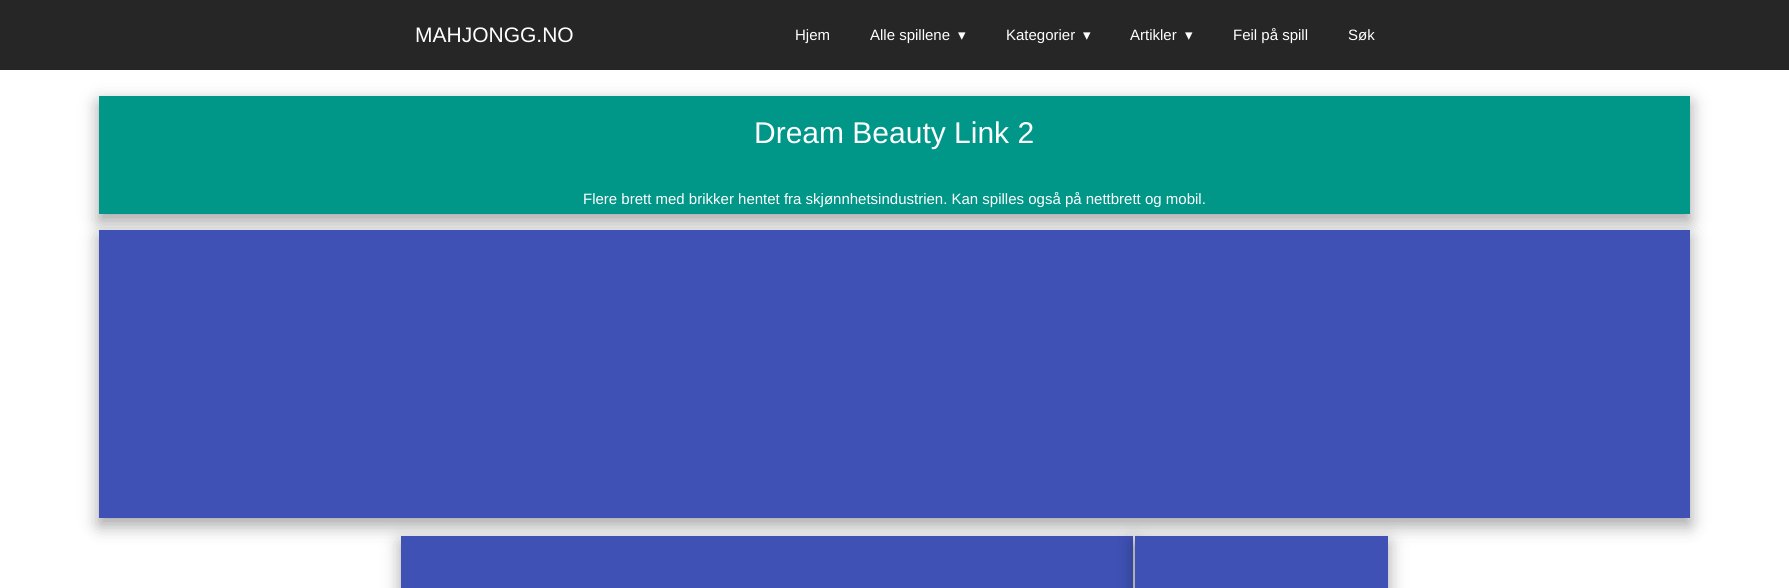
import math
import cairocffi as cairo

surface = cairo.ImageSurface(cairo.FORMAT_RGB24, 1789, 588)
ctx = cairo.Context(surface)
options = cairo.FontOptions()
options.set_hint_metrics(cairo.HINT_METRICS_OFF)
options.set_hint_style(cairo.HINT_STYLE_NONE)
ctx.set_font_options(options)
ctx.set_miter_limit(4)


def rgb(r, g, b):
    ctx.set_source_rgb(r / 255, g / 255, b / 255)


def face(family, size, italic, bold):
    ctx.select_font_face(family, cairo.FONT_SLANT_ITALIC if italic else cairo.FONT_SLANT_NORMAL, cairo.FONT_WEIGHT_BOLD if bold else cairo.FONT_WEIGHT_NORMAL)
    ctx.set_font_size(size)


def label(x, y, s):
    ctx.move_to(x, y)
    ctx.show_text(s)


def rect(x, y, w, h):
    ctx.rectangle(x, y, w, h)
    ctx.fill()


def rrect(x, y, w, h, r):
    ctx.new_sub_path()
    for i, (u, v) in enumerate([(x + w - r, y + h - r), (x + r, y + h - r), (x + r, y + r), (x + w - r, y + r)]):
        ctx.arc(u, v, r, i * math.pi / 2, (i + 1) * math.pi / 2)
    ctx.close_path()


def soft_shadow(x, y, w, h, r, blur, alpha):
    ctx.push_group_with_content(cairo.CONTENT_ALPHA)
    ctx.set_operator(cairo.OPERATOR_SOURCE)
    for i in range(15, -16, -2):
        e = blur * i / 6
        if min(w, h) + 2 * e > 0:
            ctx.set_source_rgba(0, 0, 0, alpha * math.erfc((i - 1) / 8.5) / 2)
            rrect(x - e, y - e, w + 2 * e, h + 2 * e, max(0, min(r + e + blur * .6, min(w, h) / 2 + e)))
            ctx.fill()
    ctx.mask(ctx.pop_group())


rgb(255, 255, 255)
ctx.paint()
rgb(38, 38, 38)
rect(0, 0, 1789, 70)
face('Liberation Sans', 21, 0, 0)
rgb(255, 255, 255)
label(415, 42, 'MAHJONGG.NO')
face('Liberation Sans', 15, 0, 0)
label(795, 40, 'Hjem')
label(870, 40, 'Alle spillene')
face('DejaVu Sans', 15, 0, 0)
label(958, 40, '▾')
face('Liberation Sans', 15, 0, 0)
label(1006, 40, 'Kategorier')
face('DejaVu Sans', 15, 0, 0)
label(1083, 40, '▾')
face('Liberation Sans', 15, 0, 0)
label(1130, 40, 'Artikler')
face('DejaVu Sans', 15, 0, 0)
label(1185, 40, '▾')
face('Liberation Sans', 15, 0, 0)
label(1233, 40, 'Feil på spill')
label(1348, 40, 'Søk')
rgb(0, 0, 0)
soft_shadow(99, 102, 1591, 118, 0, 10, 0.19)
soft_shadow(99, 104, 1591, 118, 0, 8, 0.2)
rgb(0, 150, 136)
rect(99, 96, 1591, 118)
face('Liberation Sans', 30, 0, 0)
rgb(255, 255, 255)
label(754, 143, 'Dream Beauty Link 2')
rgb(0, 0, 0)
soft_shadow(99, 236, 1591, 288, 0, 10, 0.19)
face('Liberation Sans', 15, 0, 0)
rgb(255, 255, 255)
label(583, 204, 'Flere brett med brikker hentet fra skjønnhetsindustrien. Kan spilles også på nettbrett og mobil.')
rgb(0, 0, 0)
soft_shadow(99, 238, 1591, 288, 0, 8, 0.2)
rgb(63, 81, 181)
rect(99, 230, 1591, 288)
rgb(0, 0, 0)
soft_shadow(401, 542, 732, 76, 0, 10, 0.19)
soft_shadow(401, 544, 732, 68, 0, 8, 0.2)
rgb(63, 81, 181)
rect(401, 536, 732, 52)
rgb(0, 0, 0)
soft_shadow(1135, 542, 253, 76, 0, 10, 0.19)
soft_shadow(1135, 544, 253, 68, 0, 8, 0.2)
rgb(63, 81, 181)
rect(1135, 536, 253, 52)
surface.write_to_png('render.png')
